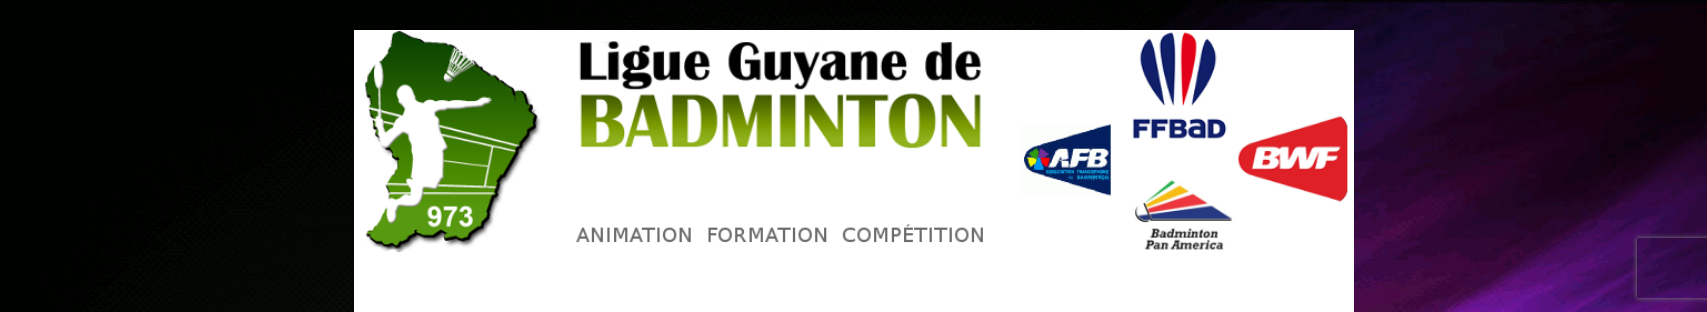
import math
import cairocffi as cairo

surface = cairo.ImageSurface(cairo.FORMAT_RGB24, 1707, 312)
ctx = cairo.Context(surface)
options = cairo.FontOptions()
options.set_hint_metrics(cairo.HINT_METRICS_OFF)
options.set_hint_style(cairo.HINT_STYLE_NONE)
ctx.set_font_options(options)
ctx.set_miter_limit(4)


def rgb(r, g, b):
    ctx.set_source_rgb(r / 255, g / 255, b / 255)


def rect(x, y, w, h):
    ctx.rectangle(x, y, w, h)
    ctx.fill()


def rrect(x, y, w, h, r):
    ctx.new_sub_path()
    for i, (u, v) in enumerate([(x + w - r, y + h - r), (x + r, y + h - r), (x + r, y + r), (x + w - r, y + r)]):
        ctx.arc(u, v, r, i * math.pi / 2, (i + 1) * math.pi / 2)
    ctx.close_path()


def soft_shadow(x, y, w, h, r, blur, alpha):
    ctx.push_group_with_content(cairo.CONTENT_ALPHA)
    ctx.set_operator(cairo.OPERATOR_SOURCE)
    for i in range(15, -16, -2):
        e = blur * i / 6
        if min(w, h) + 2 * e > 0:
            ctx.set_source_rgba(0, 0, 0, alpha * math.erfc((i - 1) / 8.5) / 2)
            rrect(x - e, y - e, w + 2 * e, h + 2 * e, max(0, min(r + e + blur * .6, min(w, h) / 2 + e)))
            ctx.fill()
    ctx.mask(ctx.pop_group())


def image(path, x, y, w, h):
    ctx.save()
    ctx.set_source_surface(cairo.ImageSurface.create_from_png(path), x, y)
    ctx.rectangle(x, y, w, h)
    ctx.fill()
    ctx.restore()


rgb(255, 255, 255)
ctx.paint()
image('image0.png', 0, 0, 1707, 312)
rgb(255, 255, 255)
rect(354, 252, 1000, 60)
image('image1.png', 354, 30, 1000, 222)
ctx.save()
ctx.set_fill_rule(cairo.FILL_RULE_EVEN_ODD)
ctx.new_path()
ctx.move_to(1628, 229)
ctx.line_to(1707, 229)
ctx.line_to(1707, 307)
ctx.line_to(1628, 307)
ctx.close_path()
ctx.move_to(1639, 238)
ctx.line_to(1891, 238)
ctx.curve_to(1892, 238, 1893, 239, 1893, 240)
ctx.line_to(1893, 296)
ctx.curve_to(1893, 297, 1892, 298, 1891, 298)
ctx.line_to(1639, 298)
ctx.curve_to(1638, 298, 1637, 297, 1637, 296)
ctx.line_to(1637, 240)
ctx.curve_to(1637, 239, 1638, 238, 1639, 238)
ctx.close_path()
ctx.clip()
rgb(128, 128, 128)
soft_shadow(1637, 238, 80, 60, 2, 2.5, 1)
ctx.restore()
surface.write_to_png('render.png')
